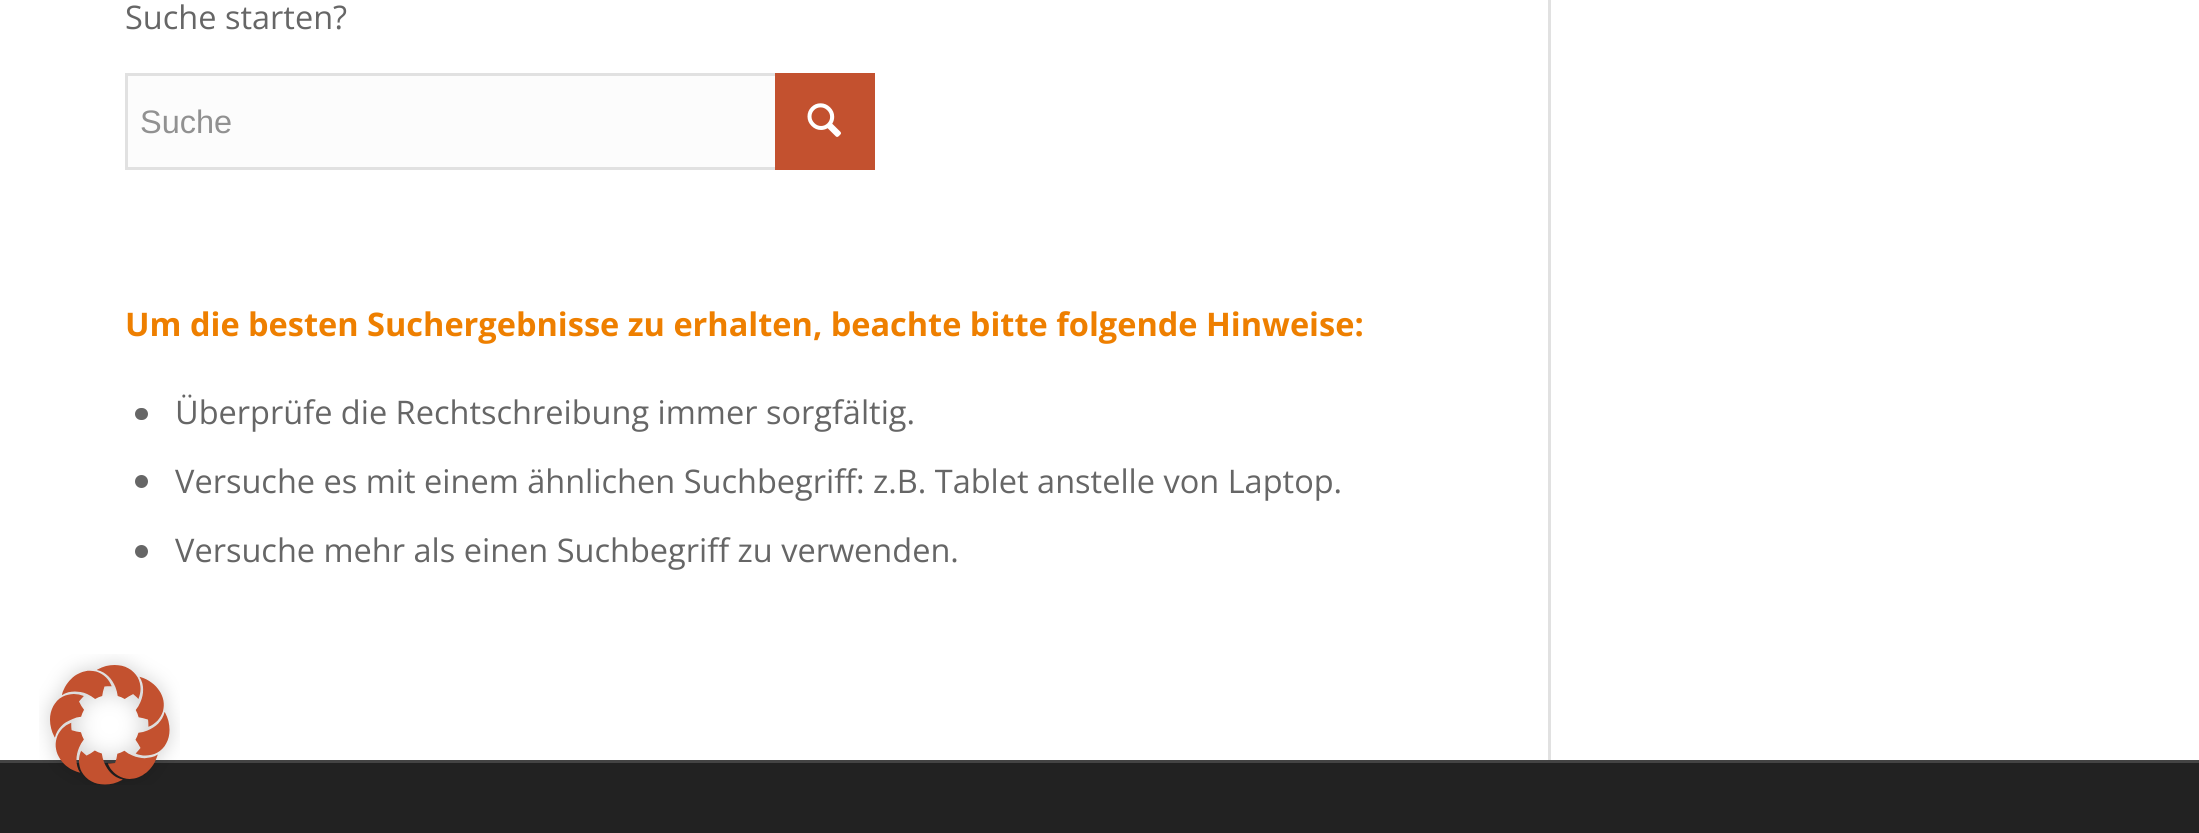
import math
import cairocffi as cairo

surface = cairo.ImageSurface(cairo.FORMAT_RGB24, 2199, 833)
ctx = cairo.Context(surface)
options = cairo.FontOptions()
options.set_hint_metrics(cairo.HINT_METRICS_OFF)
options.set_hint_style(cairo.HINT_STYLE_NONE)
ctx.set_font_options(options)
ctx.set_miter_limit(4)


def rgb(r, g, b):
    ctx.set_source_rgb(r / 255, g / 255, b / 255)


def face(family, size, italic, bold):
    ctx.select_font_face(family, cairo.FONT_SLANT_ITALIC if italic else cairo.FONT_SLANT_NORMAL, cairo.FONT_WEIGHT_BOLD if bold else cairo.FONT_WEIGHT_NORMAL)
    ctx.set_font_size(size)


def label(x, y, s):
    ctx.move_to(x, y)
    ctx.show_text(s)


def rect(x, y, w, h):
    ctx.rectangle(x, y, w, h)
    ctx.fill()


def rrect(x, y, w, h, r):
    ctx.new_sub_path()
    for i, (u, v) in enumerate([(x + w - r, y + h - r), (x + r, y + h - r), (x + r, y + r), (x + w - r, y + r)]):
        ctx.arc(u, v, r, i * math.pi / 2, (i + 1) * math.pi / 2)
    ctx.close_path()


def image(path, x, y, w, h):
    ctx.save()
    ctx.set_source_surface(cairo.ImageSurface.create_from_png(path), x, y)
    ctx.rectangle(x, y, w, h)
    ctx.fill()
    ctx.restore()


rgb(255, 255, 255)
ctx.paint()
rgb(225, 225, 225)
rect(1548, 0, 3, 760)
face('Open Sans', 32.5, 0, 0)
rgb(102, 102, 102)
label(125, 29, 'Suche starten?')
rgb(252, 252, 252)
rect(128, 76, 647, 91)
ctx.rectangle(126.5, 74.5, 747, 94)
rgb(225, 225, 225)
ctx.set_line_width(3)
ctx.stroke()
face('Liberation Sans', 32.5, 0, 0)
rgb(145, 145, 145)
label(140, 133, 'Suche')
rgb(195, 81, 47)
rect(775, 73, 100, 97)
image('image0.png', 807, 103, 34, 34)
face('Open Sans', 32.5, 0, 1)
rgb(238, 127, 0)
label(125, 336, 'Um die besten Suchergebnisse zu erhalten, beachte bitte folgende Hinweise:')
rgb(102, 102, 102)
rrect(135, 408, 13, 12, 6)
ctx.fill()
face('Open Sans', 32.5, 0, 0)
label(175, 424, 'Überprüfe die Rechtschreibung immer sorgfältig.')
ctx.new_path()
ctx.arc(141.5, 481.5, 6.5, 0, 2 * math.pi)
ctx.fill()
label(175, 493, 'Versuche es mit einem ähnlichen Suchbegriff: z.B. Tablet anstelle von Laptop.')
ctx.new_path()
ctx.arc(141.5, 551.5, 6.5, 0, 2 * math.pi)
ctx.fill()
label(175, 562, 'Versuche mehr als einen Suchbegriff zu verwenden.')
rgb(34, 34, 34)
rect(0, 763, 2199, 70)
rgb(68, 68, 68)
rect(0, 760, 2199, 3)
image('image1.png', 39, 654, 141, 131)
surface.write_to_png('render.png')
